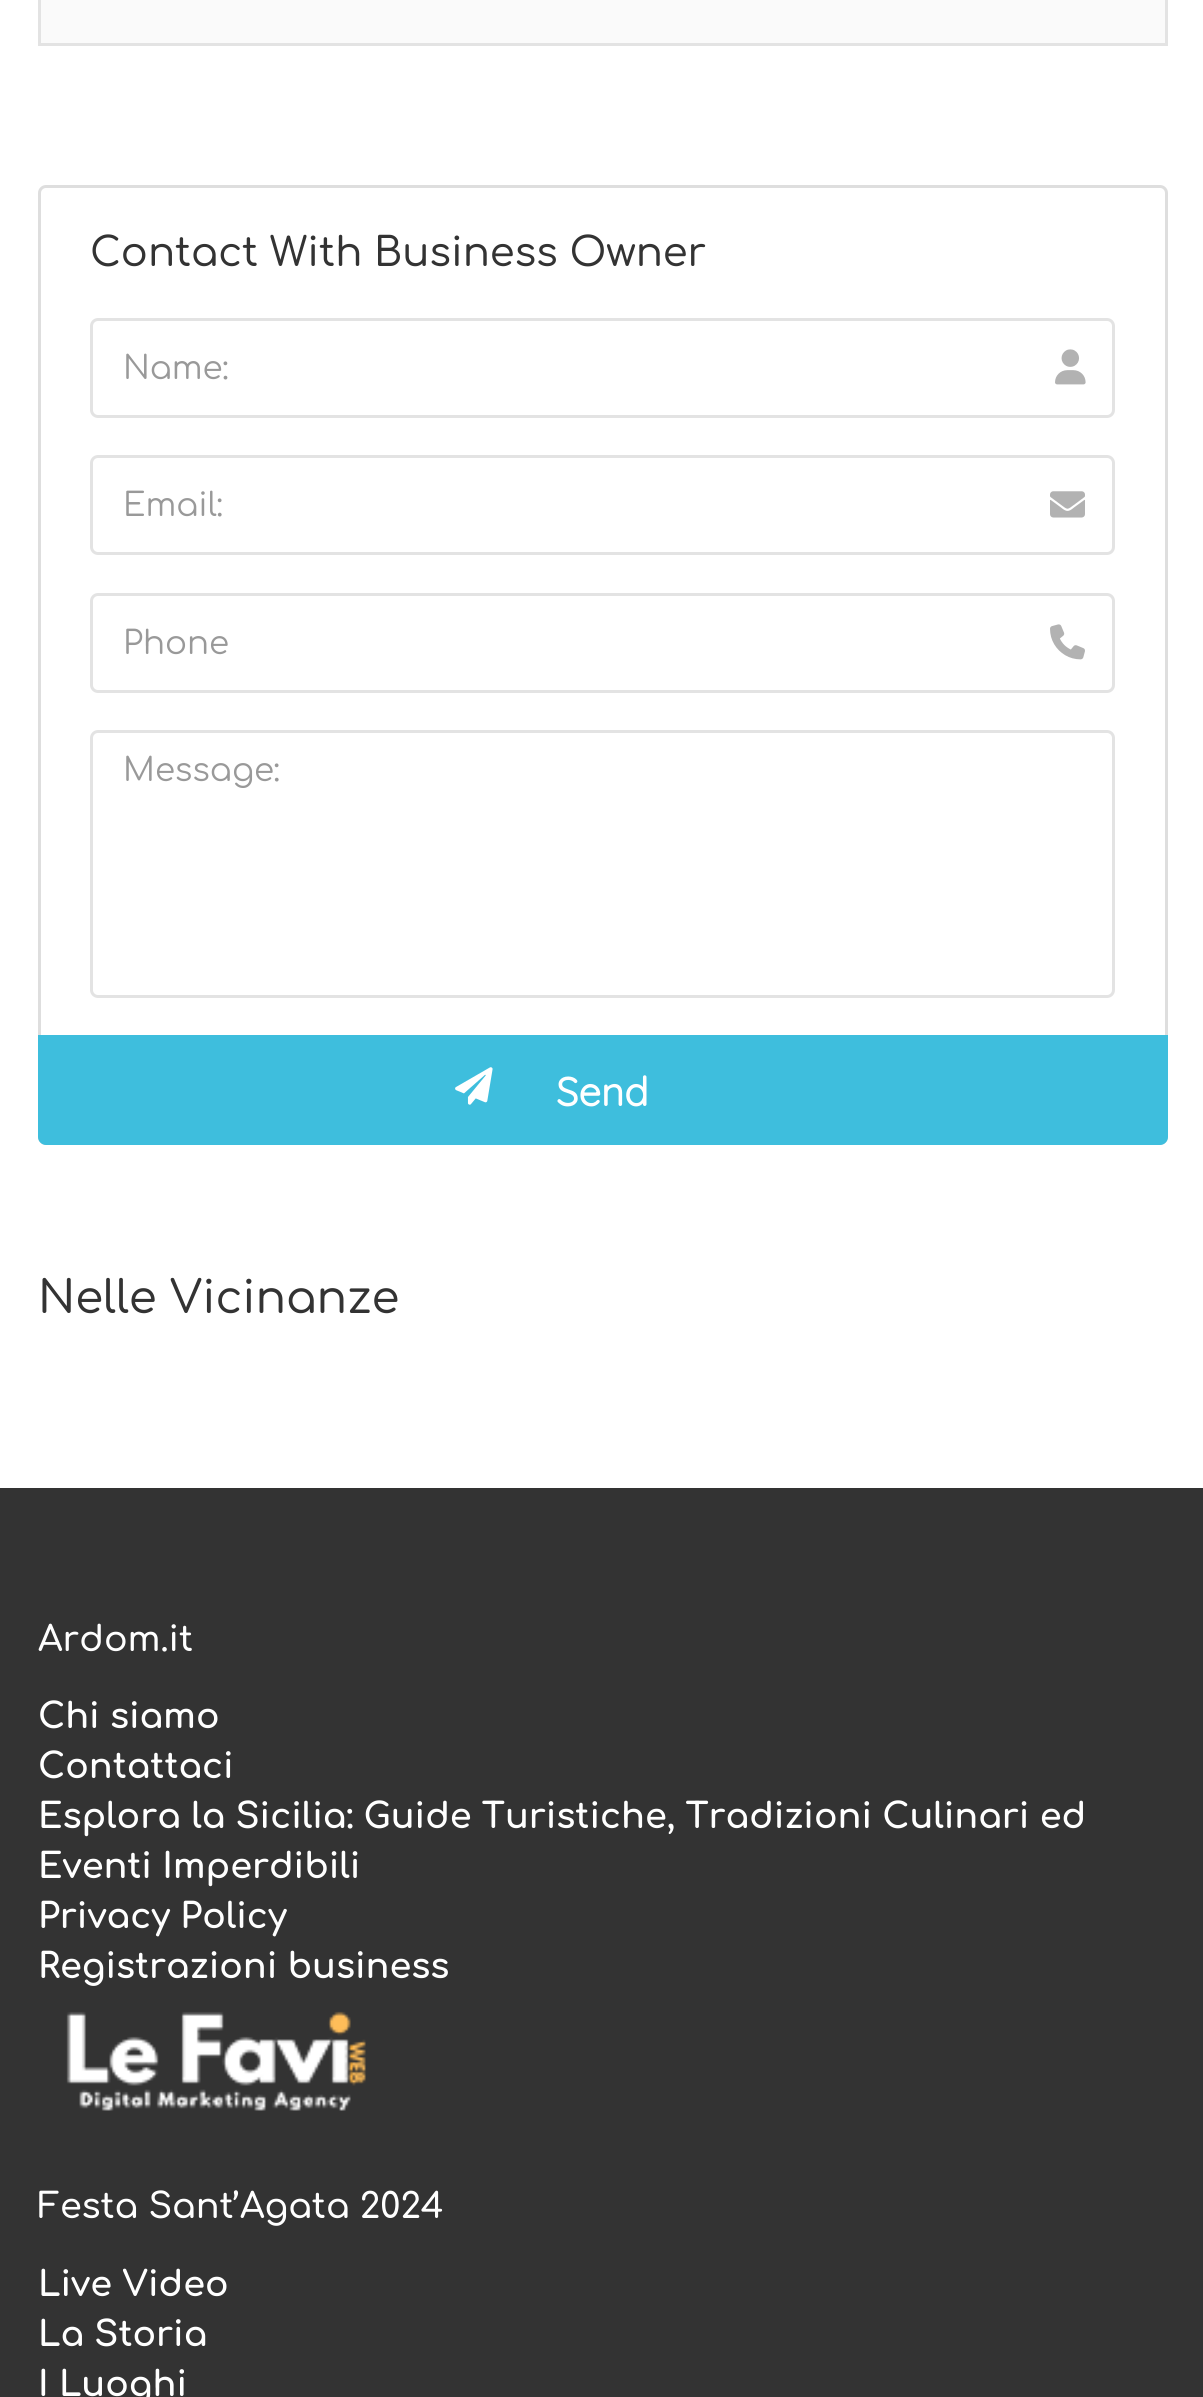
import math
import cairocffi as cairo

surface = cairo.ImageSurface(cairo.FORMAT_RGB24, 1203, 2397)
ctx = cairo.Context(surface)
options = cairo.FontOptions()
options.set_hint_metrics(cairo.HINT_METRICS_OFF)
options.set_hint_style(cairo.HINT_STYLE_NONE)
ctx.set_font_options(options)
ctx.set_miter_limit(4)


def rgb(r, g, b):
    ctx.set_source_rgb(r / 255, g / 255, b / 255)


def face(family, size, italic, bold):
    ctx.select_font_face(family, cairo.FONT_SLANT_ITALIC if italic else cairo.FONT_SLANT_NORMAL, cairo.FONT_WEIGHT_BOLD if bold else cairo.FONT_WEIGHT_NORMAL)
    ctx.set_font_size(size)


def label(x, y, s):
    ctx.move_to(x, y)
    ctx.show_text(s)


def rect(x, y, w, h):
    ctx.rectangle(x, y, w, h)
    ctx.fill()


def rrect(x, y, w, h, r):
    ctx.new_sub_path()
    for i, (u, v) in enumerate([(x + w - r, y + h - r), (x + r, y + h - r), (x + r, y + r), (x + w - r, y + r)]):
        ctx.arc(u, v, r, i * math.pi / 2, (i + 1) * math.pi / 2)
    ctx.close_path()


def image(path, x, y, w, h):
    ctx.save()
    ctx.set_source_surface(cairo.ImageSurface.create_from_png(path), x, y)
    ctx.rectangle(x, y, w, h)
    ctx.fill()
    ctx.restore()


rgb(255, 255, 255)
ctx.paint()
rgb(250, 250, 250)
rect(41, 0, 1124, 43)
rgb(227, 227, 227)
rect(1165, 0, 3, 45)
rect(38, 43, 1130, 3)
rect(38, 0, 3, 45)
rrect(39.5, 186.5, 1127, 957, 6.5)
rgb(222, 222, 222)
ctx.set_line_width(3)
ctx.stroke()
face('Comfortaa Medium', 40, 0, 0)
rgb(51, 51, 51)
label(90, 266, 'Contact With Business Owner')
rrect(91.5, 319.5, 1022, 97, 6.5)
rgb(227, 227, 227)
ctx.stroke()
face('Comfortaa', 32.5, 0, 0)
rgb(153, 153, 153)
label(123, 379, 'Name:')
image('image0.png', 1055, 349, 31, 36)
rrect(91.5, 456.5, 1022, 97, 6.5)
rgb(227, 227, 227)
ctx.stroke()
rgb(153, 153, 153)
label(123, 516, 'Email:')
image('image1.png', 1050, 491, 35, 27)
rrect(91.5, 594.5, 1022, 97, 6.5)
rgb(227, 227, 227)
ctx.stroke()
rgb(153, 153, 153)
label(123, 654, 'Phone')
image('image2.png', 1050, 624, 35, 36)
rrect(91.5, 731.5, 1022, 265, 6.5)
rgb(227, 227, 227)
ctx.stroke()
rgb(153, 153, 153)
label(123, 781, 'Message:')
rgb(62, 190, 221)
ctx.new_path()
ctx.move_to(39.5, 1036.5)
ctx.line_to(1166.5, 1036.5)
ctx.line_to(1166.5, 1137)
ctx.curve_to(1166.5, 1140.5, 1163.5, 1143.5, 1160, 1143.5)
ctx.line_to(46, 1143.5)
ctx.curve_to(42.5, 1143.5, 39.5, 1140.5, 39.5, 1137)
ctx.close_path()
ctx.fill_preserve()
ctx.stroke()
image('image3.png', 455, 1067, 38, 38)
face('Quicksand', 40, 0, 1)
rgb(255, 255, 255)
label(556, 1106, 'Send')
face('Comfortaa Medium', 45, 0, 0)
rgb(51, 51, 51)
label(38, 1313, 'Nelle Vicinanze')
rect(0, 1488, 1203, 909)
face('Comfortaa SemiBold', 35, 0, 0)
rgb(255, 255, 255)
label(38, 1651, 'Ardom.it')
face('Comfortaa', 35, 0, 1)
label(38, 1728, 'Chi siamo')
label(38, 1778, 'Contattaci')
label(38, 1828, 'Esplora la Sicilia: Guide Turistiche, Tradizioni Culinari ed')
label(38, 1878, 'Eventi Imperdibili')
label(38, 1928, 'Privacy Policy')
label(38, 1978, 'Registrazioni business')
image('image4.png', 66, 2011, 300, 100)
face('Comfortaa SemiBold', 35, 0, 0)
label(38, 2218, 'Festa Sant’Agata 2024')
face('Comfortaa', 35, 0, 1)
label(38, 2296, 'Live Video')
label(38, 2346, 'La Storia')
label(38, 2396, 'I Luoghi')
surface.write_to_png('render.png')
